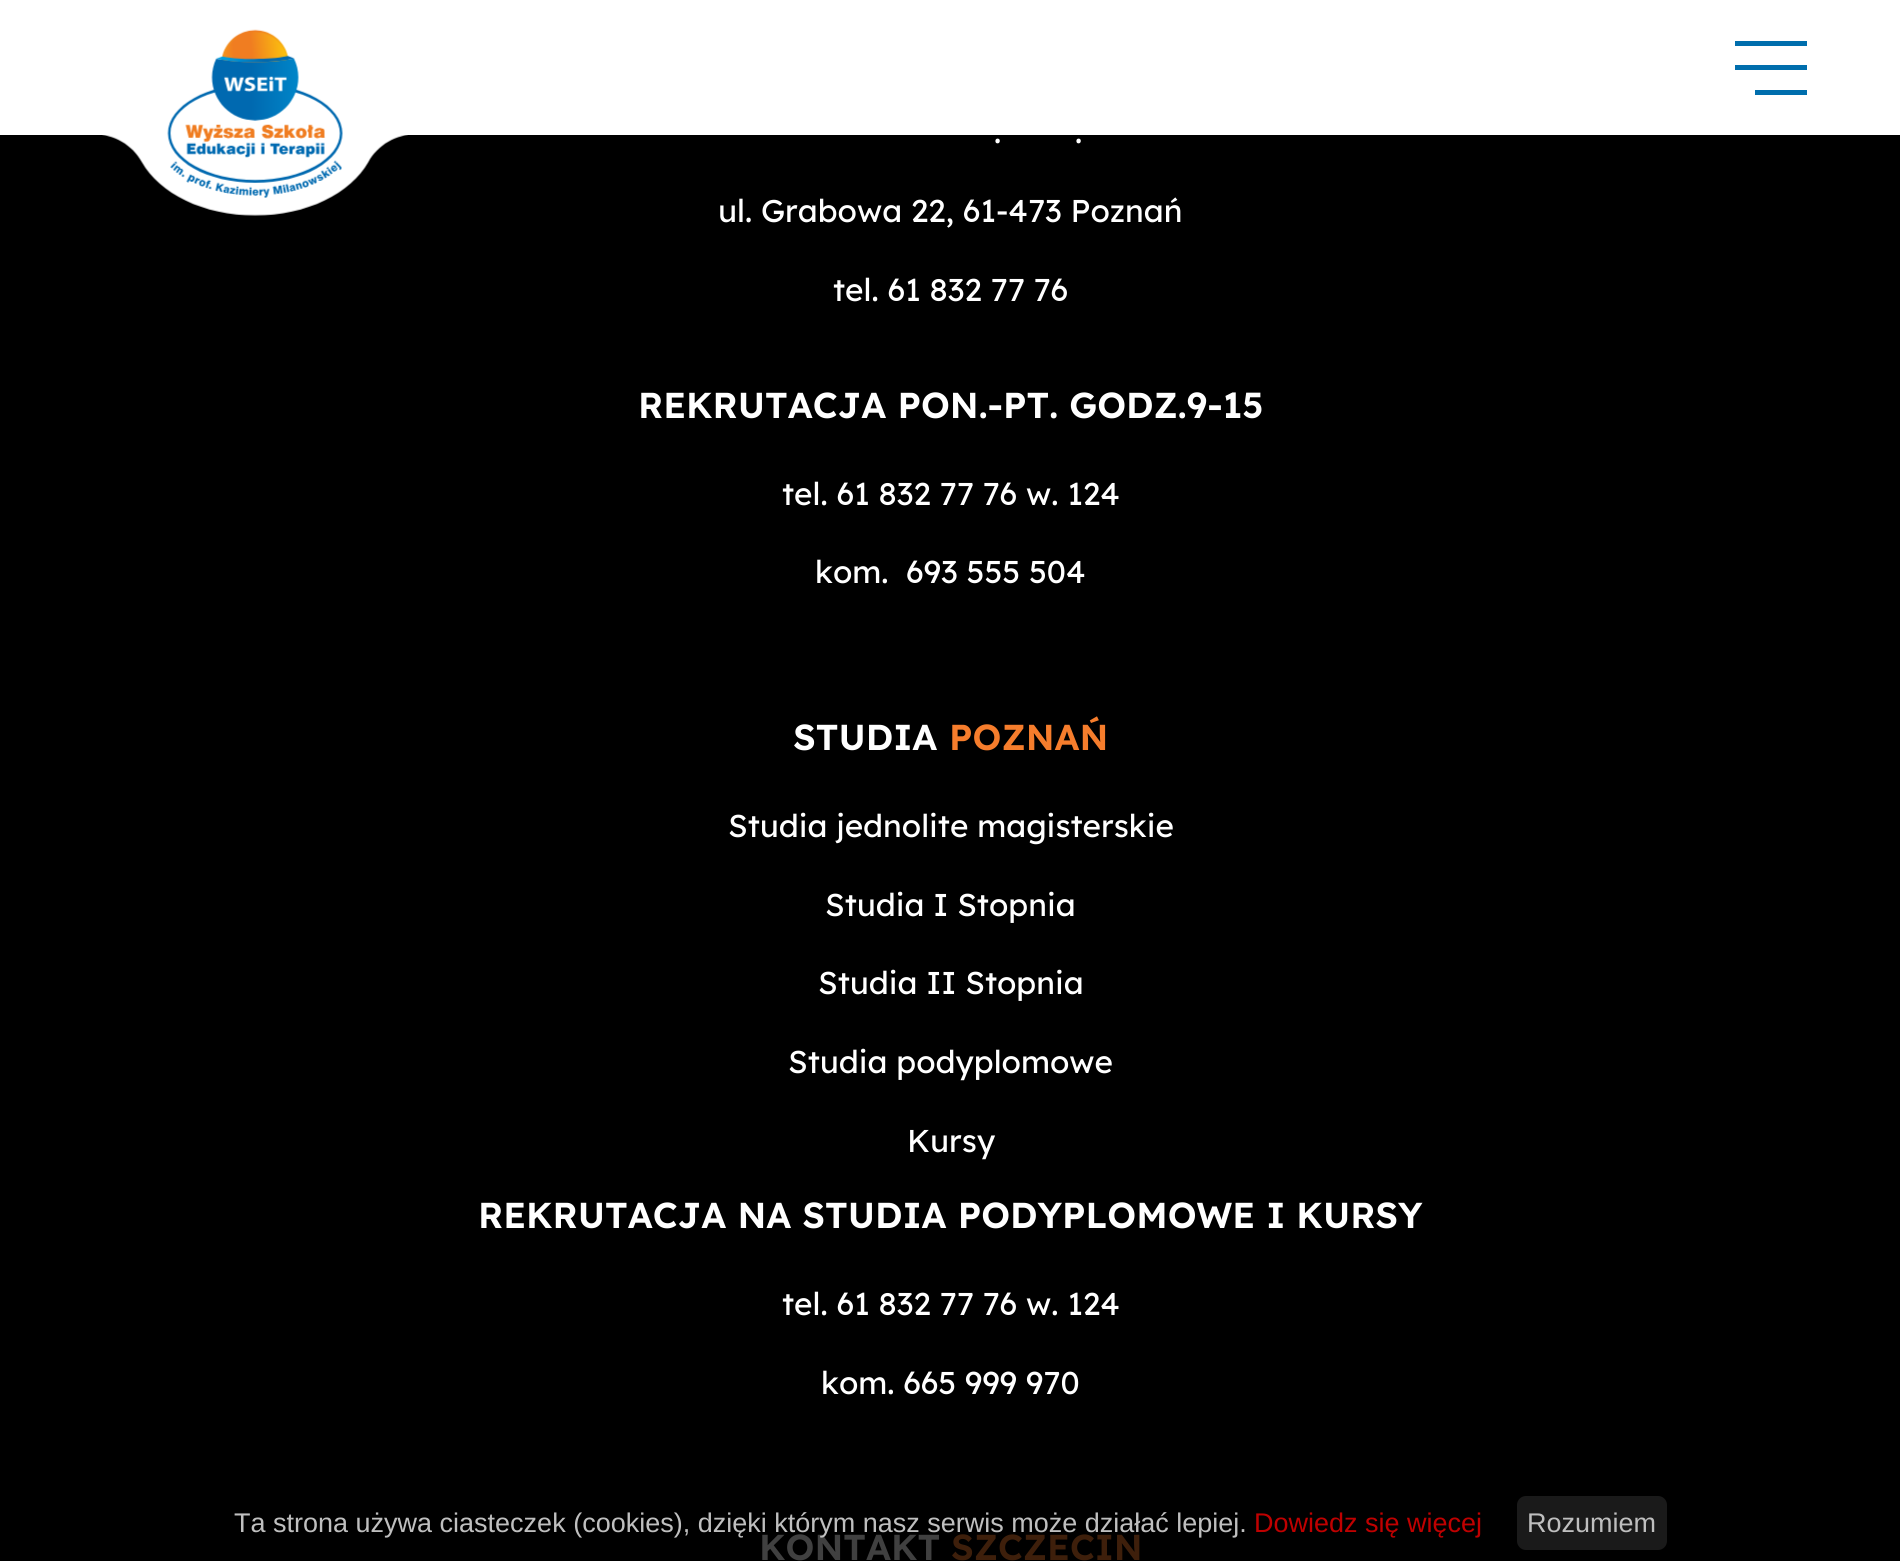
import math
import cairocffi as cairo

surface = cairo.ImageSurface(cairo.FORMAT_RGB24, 1900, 1561)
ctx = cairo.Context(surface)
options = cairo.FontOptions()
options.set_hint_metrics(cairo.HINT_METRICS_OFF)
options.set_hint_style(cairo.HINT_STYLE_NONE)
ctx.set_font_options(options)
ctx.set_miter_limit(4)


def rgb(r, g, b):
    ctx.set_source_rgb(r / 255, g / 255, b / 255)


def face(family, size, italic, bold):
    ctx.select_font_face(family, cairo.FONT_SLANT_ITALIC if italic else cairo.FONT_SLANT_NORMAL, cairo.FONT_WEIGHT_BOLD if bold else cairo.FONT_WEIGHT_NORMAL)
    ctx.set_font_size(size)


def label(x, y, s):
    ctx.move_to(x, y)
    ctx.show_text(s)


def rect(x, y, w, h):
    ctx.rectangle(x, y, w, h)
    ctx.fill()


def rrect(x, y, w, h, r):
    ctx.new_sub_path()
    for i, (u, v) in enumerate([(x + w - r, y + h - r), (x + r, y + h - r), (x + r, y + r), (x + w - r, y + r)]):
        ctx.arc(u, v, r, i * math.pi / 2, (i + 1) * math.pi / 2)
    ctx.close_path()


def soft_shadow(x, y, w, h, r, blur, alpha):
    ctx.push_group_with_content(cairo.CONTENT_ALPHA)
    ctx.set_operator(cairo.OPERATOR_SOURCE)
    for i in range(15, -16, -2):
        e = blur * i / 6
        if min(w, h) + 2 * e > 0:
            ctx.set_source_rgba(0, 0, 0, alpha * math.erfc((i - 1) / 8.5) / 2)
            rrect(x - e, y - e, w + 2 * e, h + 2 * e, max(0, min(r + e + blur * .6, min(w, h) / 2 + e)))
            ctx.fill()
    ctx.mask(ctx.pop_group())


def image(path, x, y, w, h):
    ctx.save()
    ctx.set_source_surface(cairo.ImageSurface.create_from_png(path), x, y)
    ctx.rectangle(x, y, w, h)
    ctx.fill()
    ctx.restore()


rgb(0, 0, 0)
ctx.paint()
soft_shadow(0, 0, 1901, 135, 0, 67.5, 0.12)
rgb(255, 255, 255)
rect(0, 0, 1900, 135)
image('image0.png', 102, 29, 306, 187)
rgb(0, 110, 173)
rect(1735, 41, 72, 5)
rect(1735, 65, 72, 5)
rect(1755, 90, 52, 5)
face('Lexend', 31.5, 0, 0)
rgb(255, 255, 255)
label(994, 143, '.')
label(1075, 143, '.')
label(718, 222, 'ul. Grabowa 22, 61-473 Poznań')
label(833, 301, 'tel. 61 832 77 76')
face('Lexend SemiBold', 36, 0, 0)
label(638, 418, 'REKRUTACJA PON.-PT. GODZ.9-15')
face('Lexend', 31.5, 0, 0)
label(782, 505, 'tel. 61 832 77 76 w. 124')
label(815, 583, 'kom.  693 555 504')
face('Lexend SemiBold', 36, 0, 0)
label(793, 750, 'STUDIA')
rgb(246, 125, 44)
label(949, 750, 'POZNAŃ')
face('Lexend', 31.5, 0, 0)
rgb(255, 255, 255)
label(728, 837, 'Studia jednolite magisterskie')
label(825, 916, 'Studia I Stopnia')
label(818, 994, 'Studia II Stopnia')
label(788, 1073, 'Studia podyplomowe')
label(907, 1152, 'Kursy')
face('Lexend SemiBold', 36, 0, 0)
label(478, 1228, 'REKRUTACJA NA STUDIA PODYPLOMOWE I KURSY')
face('Lexend', 31.5, 0, 0)
label(782, 1315, 'tel. 61 832 77 76 w. 124')
label(821, 1394, 'kom. 665 999 970')
face('Lexend SemiBold', 36, 0, 0)
rgb(64, 64, 64)
label(759, 1560, 'KONTAKT')
rgb(62, 31, 11)
label(951, 1560, 'SZCZECIN')
face('Liberation Sans', 27, 0, 0)
rgb(191, 191, 191)
label(234, 1532, 'Ta strona używa ciasteczek (cookies), dzięki którym nasz serwis może działać lepiej.')
rgb(191, 0, 0)
label(1254, 1532, 'Dowiedz się więcej')
rgb(26, 26, 26)
rrect(1517, 1496, 150, 54, 9)
ctx.fill()
rgb(191, 191, 191)
label(1527, 1532, 'Rozumiem')
surface.write_to_png('render.png')
